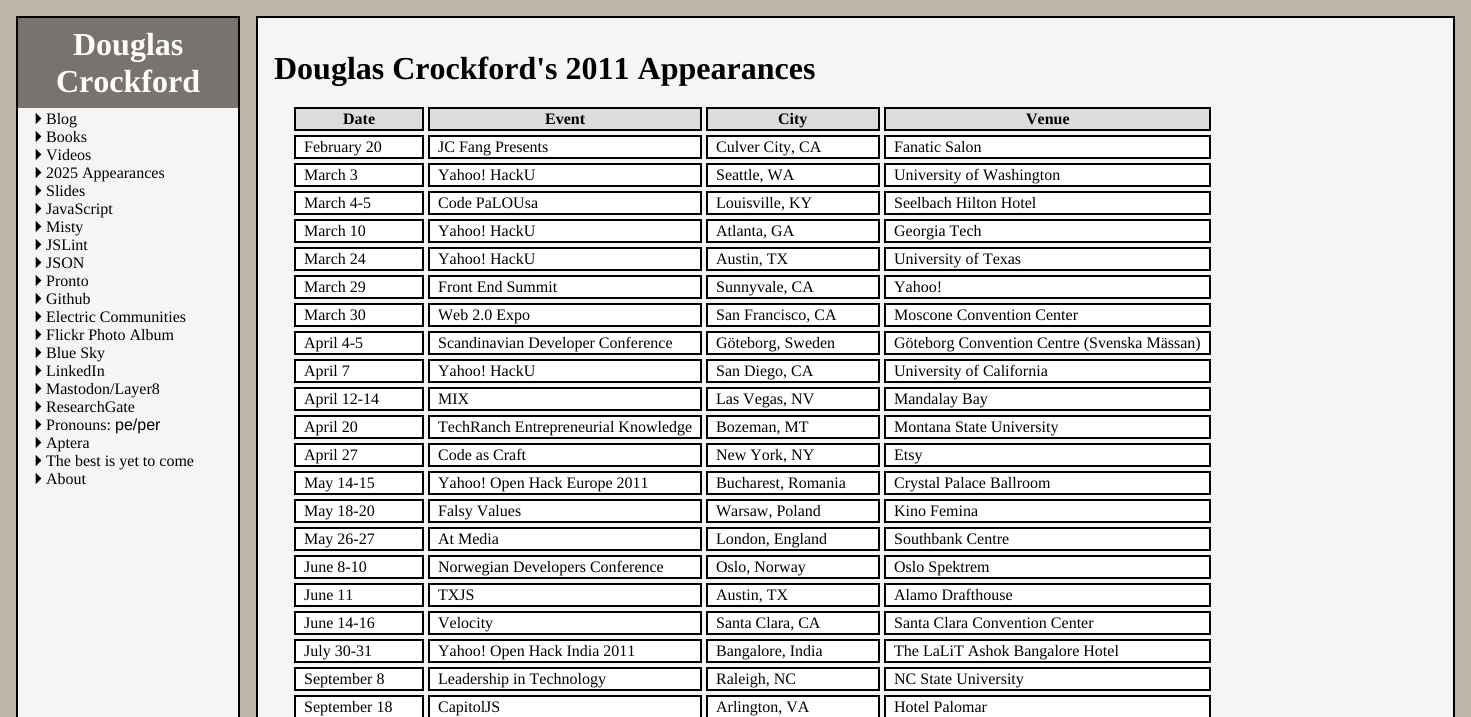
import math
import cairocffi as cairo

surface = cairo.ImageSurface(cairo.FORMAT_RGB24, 1471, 717)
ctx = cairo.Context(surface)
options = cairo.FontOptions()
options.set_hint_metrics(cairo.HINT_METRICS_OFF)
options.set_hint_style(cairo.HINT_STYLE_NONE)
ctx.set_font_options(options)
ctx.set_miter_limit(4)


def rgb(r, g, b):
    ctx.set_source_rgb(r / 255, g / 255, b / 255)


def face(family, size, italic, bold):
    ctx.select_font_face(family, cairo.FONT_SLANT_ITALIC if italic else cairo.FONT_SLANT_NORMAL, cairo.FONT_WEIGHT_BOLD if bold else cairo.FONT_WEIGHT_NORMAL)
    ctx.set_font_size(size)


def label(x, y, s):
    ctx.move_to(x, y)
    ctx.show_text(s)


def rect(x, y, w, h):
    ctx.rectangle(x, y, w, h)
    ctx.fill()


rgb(191, 182, 167)
ctx.paint()
rgb(245, 245, 245)
rect(18, 108, 220, 609)
ctx.rectangle(17, 17, 222, 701)
rgb(0, 0, 0)
ctx.stroke()
rgb(120, 115, 110)
rect(18, 18, 220, 90)
face('Liberation Serif', 32, 0, 1)
rgb(255, 255, 255)
label(73, 55, 'Douglas')
label(56, 92, 'Crockford')
face('FreeSans', 16, 0, 0)
rgb(0, 0, 0)
label(34, 124, '⏵')
face('Liberation Serif', 16, 0, 0)
label(46, 124, 'Blog')
face('FreeSans', 16, 0, 0)
label(34, 142, '⏵')
face('Liberation Serif', 16, 0, 0)
label(46, 142, 'Books')
face('FreeSans', 16, 0, 0)
label(34, 160, '⏵')
face('Liberation Serif', 16, 0, 0)
label(46, 160, 'Videos')
face('FreeSans', 16, 0, 0)
label(34, 178, '⏵')
face('Liberation Serif', 16, 0, 0)
label(46, 178, '2025 Appearances')
face('FreeSans', 16, 0, 0)
label(34, 196, '⏵')
face('Liberation Serif', 16, 0, 0)
label(46, 196, 'Slides')
face('FreeSans', 16, 0, 0)
label(34, 214, '⏵')
face('Liberation Serif', 16, 0, 0)
label(46, 214, 'JavaScript')
face('FreeSans', 16, 0, 0)
label(34, 232, '⏵')
face('Liberation Serif', 16, 0, 0)
label(46, 232, 'Misty')
face('FreeSans', 16, 0, 0)
label(34, 250, '⏵')
face('Liberation Serif', 16, 0, 0)
label(46, 250, 'JSLint')
face('FreeSans', 16, 0, 0)
label(34, 268, '⏵')
face('Liberation Serif', 16, 0, 0)
label(46, 268, 'JSON')
face('FreeSans', 16, 0, 0)
label(34, 286, '⏵')
face('Liberation Serif', 16, 0, 0)
label(46, 286, 'Pronto')
face('FreeSans', 16, 0, 0)
label(34, 304, '⏵')
face('Liberation Serif', 16, 0, 0)
label(46, 304, 'Github')
face('FreeSans', 16, 0, 0)
label(34, 322, '⏵')
face('Liberation Serif', 16, 0, 0)
label(46, 322, 'Electric Communities')
face('FreeSans', 16, 0, 0)
label(34, 340, '⏵')
face('Liberation Serif', 16, 0, 0)
label(46, 340, 'Flickr Photo Album')
face('FreeSans', 16, 0, 0)
label(34, 358, '⏵')
face('Liberation Serif', 16, 0, 0)
label(46, 358, 'Blue Sky')
face('FreeSans', 16, 0, 0)
label(34, 376, '⏵')
face('Liberation Serif', 16, 0, 0)
label(46, 376, 'LinkedIn')
face('FreeSans', 16, 0, 0)
label(34, 394, '⏵')
face('Liberation Serif', 16, 0, 0)
label(46, 394, 'Mastodon/Layer8')
face('FreeSans', 16, 0, 0)
label(34, 412, '⏵')
face('Liberation Serif', 16, 0, 0)
label(46, 412, 'ResearchGate')
face('FreeSans', 16, 0, 0)
label(34, 430, '⏵')
face('Liberation Serif', 16, 0, 0)
label(46, 430, 'Pronouns:')
face('Liberation Sans', 16, 0, 0)
label(115, 430, 'pe/per')
face('FreeSans', 16, 0, 0)
label(34, 448, '⏵')
face('Liberation Serif', 16, 0, 0)
label(46, 448, 'Aptera')
face('FreeSans', 16, 0, 0)
label(34, 466, '⏵')
face('Liberation Serif', 16, 0, 0)
label(46, 466, 'The best is yet to come')
face('FreeSans', 16, 0, 0)
label(34, 484, '⏵')
face('Liberation Serif', 16, 0, 0)
label(46, 484, 'About')
rgb(245, 245, 245)
ctx.rectangle(257, 17, 1197, 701)
ctx.fill_preserve()
rgb(0, 0, 0)
ctx.stroke()
face('Liberation Serif', 32, 0, 1)
label(274, 79, 'Douglas Crockford\'s 2011 Appearances')
rgb(220, 220, 220)
ctx.rectangle(295, 108, 128, 22)
ctx.fill_preserve()
rgb(0, 0, 0)
ctx.stroke()
face('Liberation Serif', 16, 0, 1)
label(343, 124, 'Date')
rgb(220, 220, 220)
ctx.rectangle(429, 108, 272, 22)
ctx.fill_preserve()
rgb(0, 0, 0)
ctx.stroke()
label(545, 124, 'Event')
rgb(220, 220, 220)
ctx.rectangle(707, 108, 172, 22)
ctx.fill_preserve()
rgb(0, 0, 0)
ctx.stroke()
label(778, 124, 'City')
rgb(220, 220, 220)
ctx.rectangle(885, 108, 325, 22)
ctx.fill_preserve()
rgb(0, 0, 0)
ctx.stroke()
label(1026, 124, 'Venue')
rgb(255, 255, 255)
ctx.rectangle(295, 136, 128, 22)
ctx.fill_preserve()
rgb(0, 0, 0)
ctx.stroke()
face('Liberation Serif', 16, 0, 0)
label(304, 152, 'February 20')
rgb(255, 255, 255)
ctx.rectangle(429, 136, 272, 22)
ctx.fill_preserve()
rgb(0, 0, 0)
ctx.stroke()
label(438, 152, 'JC Fang Presents')
rgb(255, 255, 255)
ctx.rectangle(707, 136, 172, 22)
ctx.fill_preserve()
rgb(0, 0, 0)
ctx.stroke()
label(716, 152, 'Culver City, CA')
rgb(255, 255, 255)
ctx.rectangle(885, 136, 325, 22)
ctx.fill_preserve()
rgb(0, 0, 0)
ctx.stroke()
label(894, 152, 'Fanatic Salon')
rgb(255, 255, 255)
ctx.rectangle(295, 164, 128, 22)
ctx.fill_preserve()
rgb(0, 0, 0)
ctx.stroke()
label(304, 180, 'March 3')
rgb(255, 255, 255)
ctx.rectangle(429, 164, 272, 22)
ctx.fill_preserve()
rgb(0, 0, 0)
ctx.stroke()
label(438, 180, 'Yahoo! HackU')
rgb(255, 255, 255)
ctx.rectangle(707, 164, 172, 22)
ctx.fill_preserve()
rgb(0, 0, 0)
ctx.stroke()
label(716, 180, 'Seattle, WA')
rgb(255, 255, 255)
ctx.rectangle(885, 164, 325, 22)
ctx.fill_preserve()
rgb(0, 0, 0)
ctx.stroke()
label(894, 180, 'University of Washington')
rgb(255, 255, 255)
ctx.rectangle(295, 192, 128, 22)
ctx.fill_preserve()
rgb(0, 0, 0)
ctx.stroke()
label(304, 208, 'March 4-5')
rgb(255, 255, 255)
ctx.rectangle(429, 192, 272, 22)
ctx.fill_preserve()
rgb(0, 0, 0)
ctx.stroke()
label(438, 208, 'Code PaLOUsa')
rgb(255, 255, 255)
ctx.rectangle(707, 192, 172, 22)
ctx.fill_preserve()
rgb(0, 0, 0)
ctx.stroke()
label(716, 208, 'Louisville, KY')
rgb(255, 255, 255)
ctx.rectangle(885, 192, 325, 22)
ctx.fill_preserve()
rgb(0, 0, 0)
ctx.stroke()
label(894, 208, 'Seelbach Hilton Hotel')
rgb(255, 255, 255)
ctx.rectangle(295, 220, 128, 22)
ctx.fill_preserve()
rgb(0, 0, 0)
ctx.stroke()
label(304, 236, 'March 10')
rgb(255, 255, 255)
ctx.rectangle(429, 220, 272, 22)
ctx.fill_preserve()
rgb(0, 0, 0)
ctx.stroke()
label(438, 236, 'Yahoo! HackU')
rgb(255, 255, 255)
ctx.rectangle(707, 220, 172, 22)
ctx.fill_preserve()
rgb(0, 0, 0)
ctx.stroke()
label(716, 236, 'Atlanta, GA')
rgb(255, 255, 255)
ctx.rectangle(885, 220, 325, 22)
ctx.fill_preserve()
rgb(0, 0, 0)
ctx.stroke()
label(894, 236, 'Georgia Tech')
rgb(255, 255, 255)
ctx.rectangle(295, 248, 128, 22)
ctx.fill_preserve()
rgb(0, 0, 0)
ctx.stroke()
label(304, 264, 'March 24')
rgb(255, 255, 255)
ctx.rectangle(429, 248, 272, 22)
ctx.fill_preserve()
rgb(0, 0, 0)
ctx.stroke()
label(438, 264, 'Yahoo! HackU')
rgb(255, 255, 255)
ctx.rectangle(707, 248, 172, 22)
ctx.fill_preserve()
rgb(0, 0, 0)
ctx.stroke()
label(716, 264, 'Austin, TX')
rgb(255, 255, 255)
ctx.rectangle(885, 248, 325, 22)
ctx.fill_preserve()
rgb(0, 0, 0)
ctx.stroke()
label(894, 264, 'University of Texas')
rgb(255, 255, 255)
ctx.rectangle(295, 276, 128, 22)
ctx.fill_preserve()
rgb(0, 0, 0)
ctx.stroke()
label(304, 292, 'March 29')
rgb(255, 255, 255)
ctx.rectangle(429, 276, 272, 22)
ctx.fill_preserve()
rgb(0, 0, 0)
ctx.stroke()
label(438, 292, 'Front End Summit')
rgb(255, 255, 255)
ctx.rectangle(707, 276, 172, 22)
ctx.fill_preserve()
rgb(0, 0, 0)
ctx.stroke()
label(716, 292, 'Sunnyvale, CA')
rgb(255, 255, 255)
ctx.rectangle(885, 276, 325, 22)
ctx.fill_preserve()
rgb(0, 0, 0)
ctx.stroke()
label(894, 292, 'Yahoo!')
rgb(255, 255, 255)
ctx.rectangle(295, 304, 128, 22)
ctx.fill_preserve()
rgb(0, 0, 0)
ctx.stroke()
label(304, 320, 'March 30')
rgb(255, 255, 255)
ctx.rectangle(429, 304, 272, 22)
ctx.fill_preserve()
rgb(0, 0, 0)
ctx.stroke()
label(438, 320, 'Web 2.0 Expo')
rgb(255, 255, 255)
ctx.rectangle(707, 304, 172, 22)
ctx.fill_preserve()
rgb(0, 0, 0)
ctx.stroke()
label(716, 320, 'San Francisco, CA')
rgb(255, 255, 255)
ctx.rectangle(885, 304, 325, 22)
ctx.fill_preserve()
rgb(0, 0, 0)
ctx.stroke()
label(894, 320, 'Moscone Convention Center')
rgb(255, 255, 255)
ctx.rectangle(295, 332, 128, 22)
ctx.fill_preserve()
rgb(0, 0, 0)
ctx.stroke()
label(304, 348, 'April 4-5')
rgb(255, 255, 255)
ctx.rectangle(429, 332, 272, 22)
ctx.fill_preserve()
rgb(0, 0, 0)
ctx.stroke()
label(438, 348, 'Scandinavian Developer Conference')
rgb(255, 255, 255)
ctx.rectangle(707, 332, 172, 22)
ctx.fill_preserve()
rgb(0, 0, 0)
ctx.stroke()
label(716, 348, 'Göteborg, Sweden')
rgb(255, 255, 255)
ctx.rectangle(885, 332, 325, 22)
ctx.fill_preserve()
rgb(0, 0, 0)
ctx.stroke()
label(894, 348, 'Göteborg Convention Centre (Svenska Mässan)')
rgb(255, 255, 255)
ctx.rectangle(295, 360, 128, 22)
ctx.fill_preserve()
rgb(0, 0, 0)
ctx.stroke()
label(304, 376, 'April 7')
rgb(255, 255, 255)
ctx.rectangle(429, 360, 272, 22)
ctx.fill_preserve()
rgb(0, 0, 0)
ctx.stroke()
label(438, 376, 'Yahoo! HackU')
rgb(255, 255, 255)
ctx.rectangle(707, 360, 172, 22)
ctx.fill_preserve()
rgb(0, 0, 0)
ctx.stroke()
label(716, 376, 'San Diego, CA')
rgb(255, 255, 255)
ctx.rectangle(885, 360, 325, 22)
ctx.fill_preserve()
rgb(0, 0, 0)
ctx.stroke()
label(894, 376, 'University of California')
rgb(255, 255, 255)
ctx.rectangle(295, 388, 128, 22)
ctx.fill_preserve()
rgb(0, 0, 0)
ctx.stroke()
label(304, 404, 'April 12-14')
rgb(255, 255, 255)
ctx.rectangle(429, 388, 272, 22)
ctx.fill_preserve()
rgb(0, 0, 0)
ctx.stroke()
label(438, 404, 'MIX')
rgb(255, 255, 255)
ctx.rectangle(707, 388, 172, 22)
ctx.fill_preserve()
rgb(0, 0, 0)
ctx.stroke()
label(716, 404, 'Las Vegas, NV')
rgb(255, 255, 255)
ctx.rectangle(885, 388, 325, 22)
ctx.fill_preserve()
rgb(0, 0, 0)
ctx.stroke()
label(894, 404, 'Mandalay Bay')
rgb(255, 255, 255)
ctx.rectangle(295, 416, 128, 22)
ctx.fill_preserve()
rgb(0, 0, 0)
ctx.stroke()
label(304, 432, 'April 20')
rgb(255, 255, 255)
ctx.rectangle(429, 416, 272, 22)
ctx.fill_preserve()
rgb(0, 0, 0)
ctx.stroke()
label(438, 432, 'TechRanch Entrepreneurial Knowledge')
rgb(255, 255, 255)
ctx.rectangle(707, 416, 172, 22)
ctx.fill_preserve()
rgb(0, 0, 0)
ctx.stroke()
label(716, 432, 'Bozeman, MT')
rgb(255, 255, 255)
ctx.rectangle(885, 416, 325, 22)
ctx.fill_preserve()
rgb(0, 0, 0)
ctx.stroke()
label(894, 432, 'Montana State University')
rgb(255, 255, 255)
ctx.rectangle(295, 444, 128, 22)
ctx.fill_preserve()
rgb(0, 0, 0)
ctx.stroke()
label(304, 460, 'April 27')
rgb(255, 255, 255)
ctx.rectangle(429, 444, 272, 22)
ctx.fill_preserve()
rgb(0, 0, 0)
ctx.stroke()
label(438, 460, 'Code as Craft')
rgb(255, 255, 255)
ctx.rectangle(707, 444, 172, 22)
ctx.fill_preserve()
rgb(0, 0, 0)
ctx.stroke()
label(716, 460, 'New York, NY')
rgb(255, 255, 255)
ctx.rectangle(885, 444, 325, 22)
ctx.fill_preserve()
rgb(0, 0, 0)
ctx.stroke()
label(894, 460, 'Etsy')
rgb(255, 255, 255)
ctx.rectangle(295, 472, 128, 22)
ctx.fill_preserve()
rgb(0, 0, 0)
ctx.stroke()
label(304, 488, 'May 14-15')
rgb(255, 255, 255)
ctx.rectangle(429, 472, 272, 22)
ctx.fill_preserve()
rgb(0, 0, 0)
ctx.stroke()
label(438, 488, 'Yahoo! Open Hack Europe 2011')
rgb(255, 255, 255)
ctx.rectangle(707, 472, 172, 22)
ctx.fill_preserve()
rgb(0, 0, 0)
ctx.stroke()
label(716, 488, 'Bucharest, Romania')
rgb(255, 255, 255)
ctx.rectangle(885, 472, 325, 22)
ctx.fill_preserve()
rgb(0, 0, 0)
ctx.stroke()
label(894, 488, 'Crystal Palace Ballroom')
rgb(255, 255, 255)
ctx.rectangle(295, 500, 128, 22)
ctx.fill_preserve()
rgb(0, 0, 0)
ctx.stroke()
label(304, 516, 'May 18-20')
rgb(255, 255, 255)
ctx.rectangle(429, 500, 272, 22)
ctx.fill_preserve()
rgb(0, 0, 0)
ctx.stroke()
label(438, 516, 'Falsy Values')
rgb(255, 255, 255)
ctx.rectangle(707, 500, 172, 22)
ctx.fill_preserve()
rgb(0, 0, 0)
ctx.stroke()
label(716, 516, 'Warsaw, Poland')
rgb(255, 255, 255)
ctx.rectangle(885, 500, 325, 22)
ctx.fill_preserve()
rgb(0, 0, 0)
ctx.stroke()
label(894, 516, 'Kino Femina')
rgb(255, 255, 255)
ctx.rectangle(295, 528, 128, 22)
ctx.fill_preserve()
rgb(0, 0, 0)
ctx.stroke()
label(304, 544, 'May 26-27')
rgb(255, 255, 255)
ctx.rectangle(429, 528, 272, 22)
ctx.fill_preserve()
rgb(0, 0, 0)
ctx.stroke()
label(438, 544, 'At Media')
rgb(255, 255, 255)
ctx.rectangle(707, 528, 172, 22)
ctx.fill_preserve()
rgb(0, 0, 0)
ctx.stroke()
label(716, 544, 'London, England')
rgb(255, 255, 255)
ctx.rectangle(885, 528, 325, 22)
ctx.fill_preserve()
rgb(0, 0, 0)
ctx.stroke()
label(894, 544, 'Southbank Centre')
rgb(255, 255, 255)
ctx.rectangle(295, 556, 128, 22)
ctx.fill_preserve()
rgb(0, 0, 0)
ctx.stroke()
label(304, 572, 'June 8-10')
rgb(255, 255, 255)
ctx.rectangle(429, 556, 272, 22)
ctx.fill_preserve()
rgb(0, 0, 0)
ctx.stroke()
label(438, 572, 'Norwegian Developers Conference')
rgb(255, 255, 255)
ctx.rectangle(707, 556, 172, 22)
ctx.fill_preserve()
rgb(0, 0, 0)
ctx.stroke()
label(716, 572, 'Oslo, Norway')
rgb(255, 255, 255)
ctx.rectangle(885, 556, 325, 22)
ctx.fill_preserve()
rgb(0, 0, 0)
ctx.stroke()
label(894, 572, 'Oslo Spektrem')
rgb(255, 255, 255)
ctx.rectangle(295, 584, 128, 22)
ctx.fill_preserve()
rgb(0, 0, 0)
ctx.stroke()
label(304, 600, 'June 11')
rgb(255, 255, 255)
ctx.rectangle(429, 584, 272, 22)
ctx.fill_preserve()
rgb(0, 0, 0)
ctx.stroke()
label(438, 600, 'TXJS')
rgb(255, 255, 255)
ctx.rectangle(707, 584, 172, 22)
ctx.fill_preserve()
rgb(0, 0, 0)
ctx.stroke()
label(716, 600, 'Austin, TX')
rgb(255, 255, 255)
ctx.rectangle(885, 584, 325, 22)
ctx.fill_preserve()
rgb(0, 0, 0)
ctx.stroke()
label(894, 600, 'Alamo Drafthouse')
rgb(255, 255, 255)
ctx.rectangle(295, 612, 128, 22)
ctx.fill_preserve()
rgb(0, 0, 0)
ctx.stroke()
label(304, 628, 'June 14-16')
rgb(255, 255, 255)
ctx.rectangle(429, 612, 272, 22)
ctx.fill_preserve()
rgb(0, 0, 0)
ctx.stroke()
label(438, 628, 'Velocity')
rgb(255, 255, 255)
ctx.rectangle(707, 612, 172, 22)
ctx.fill_preserve()
rgb(0, 0, 0)
ctx.stroke()
label(716, 628, 'Santa Clara, CA')
rgb(255, 255, 255)
ctx.rectangle(885, 612, 325, 22)
ctx.fill_preserve()
rgb(0, 0, 0)
ctx.stroke()
label(894, 628, 'Santa Clara Convention Center')
rgb(255, 255, 255)
ctx.rectangle(295, 640, 128, 22)
ctx.fill_preserve()
rgb(0, 0, 0)
ctx.stroke()
label(304, 656, 'July 30-31')
rgb(255, 255, 255)
ctx.rectangle(429, 640, 272, 22)
ctx.fill_preserve()
rgb(0, 0, 0)
ctx.stroke()
label(438, 656, 'Yahoo! Open Hack India 2011')
rgb(255, 255, 255)
ctx.rectangle(707, 640, 172, 22)
ctx.fill_preserve()
rgb(0, 0, 0)
ctx.stroke()
label(716, 656, 'Bangalore, India')
rgb(255, 255, 255)
ctx.rectangle(885, 640, 325, 22)
ctx.fill_preserve()
rgb(0, 0, 0)
ctx.stroke()
label(894, 656, 'The LaLiT Ashok Bangalore Hotel')
rgb(255, 255, 255)
ctx.rectangle(295, 668, 128, 22)
ctx.fill_preserve()
rgb(0, 0, 0)
ctx.stroke()
label(304, 684, 'September 8')
rgb(255, 255, 255)
ctx.rectangle(429, 668, 272, 22)
ctx.fill_preserve()
rgb(0, 0, 0)
ctx.stroke()
label(438, 684, 'Leadership in Technology')
rgb(255, 255, 255)
ctx.rectangle(707, 668, 172, 22)
ctx.fill_preserve()
rgb(0, 0, 0)
ctx.stroke()
label(716, 684, 'Raleigh, NC')
rgb(255, 255, 255)
ctx.rectangle(885, 668, 325, 22)
ctx.fill_preserve()
rgb(0, 0, 0)
ctx.stroke()
label(894, 684, 'NC State University')
rgb(255, 255, 255)
ctx.rectangle(295, 696, 128, 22)
ctx.fill_preserve()
rgb(0, 0, 0)
ctx.stroke()
label(304, 712, 'September 18')
rgb(255, 255, 255)
ctx.rectangle(429, 696, 272, 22)
ctx.fill_preserve()
rgb(0, 0, 0)
ctx.stroke()
label(438, 712, 'CapitolJS')
rgb(255, 255, 255)
ctx.rectangle(707, 696, 172, 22)
ctx.fill_preserve()
rgb(0, 0, 0)
ctx.stroke()
label(716, 712, 'Arlington, VA')
rgb(255, 255, 255)
ctx.rectangle(885, 696, 325, 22)
ctx.fill_preserve()
rgb(0, 0, 0)
ctx.stroke()
label(894, 712, 'Hotel Palomar')
surface.write_to_png('render.png')
